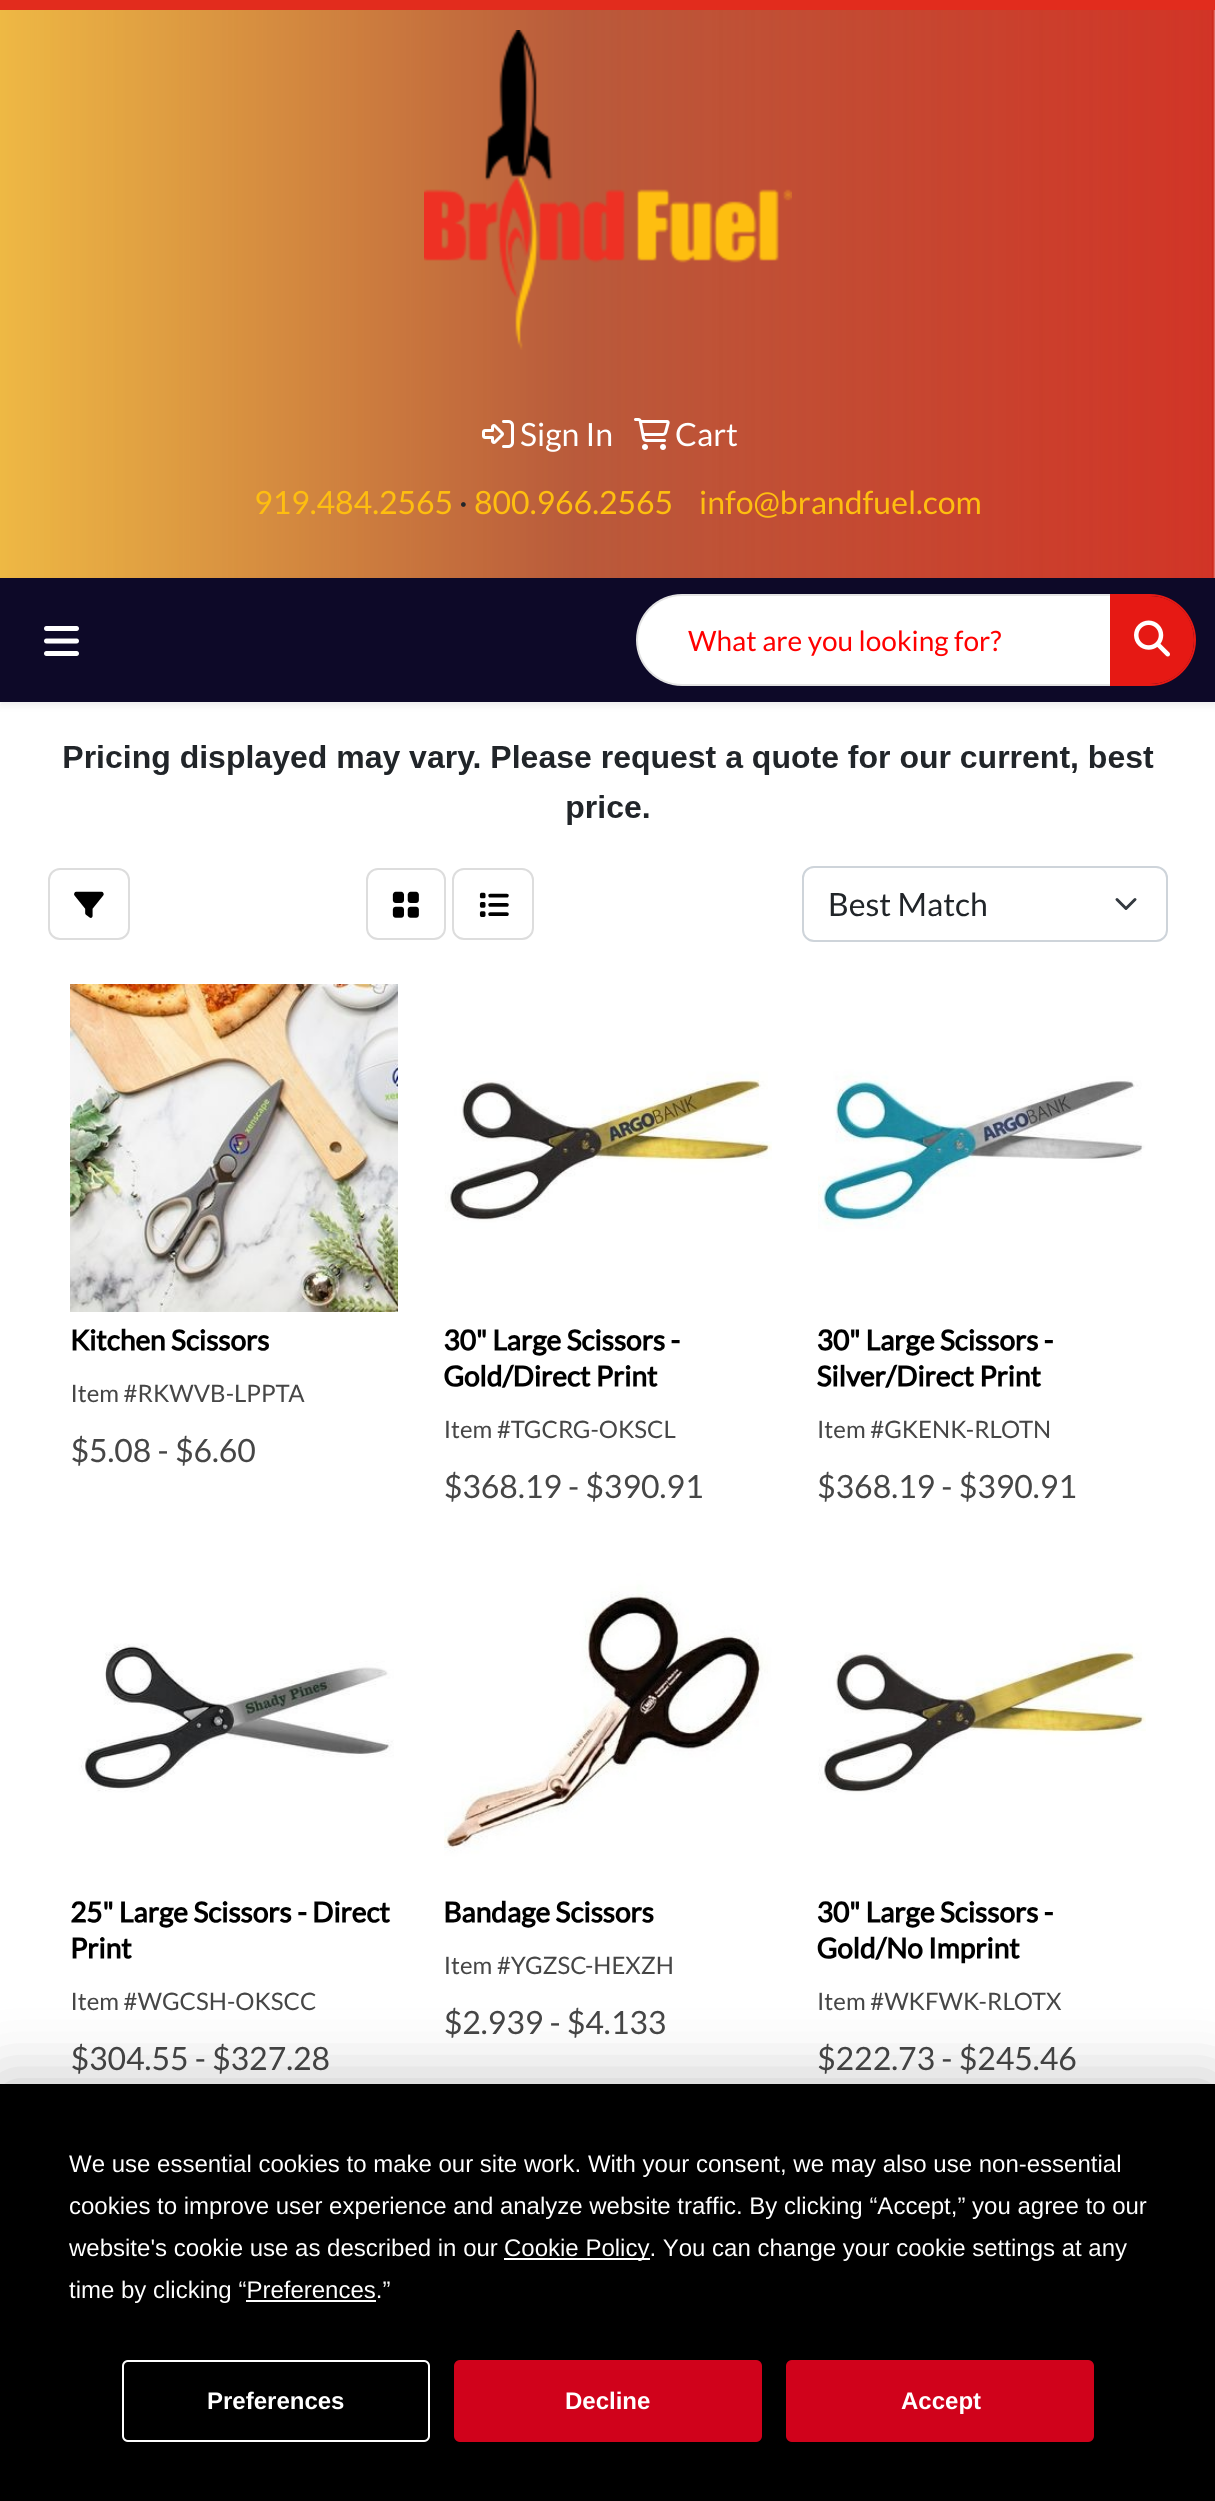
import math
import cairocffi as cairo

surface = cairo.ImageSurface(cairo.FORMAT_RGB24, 1215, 2501)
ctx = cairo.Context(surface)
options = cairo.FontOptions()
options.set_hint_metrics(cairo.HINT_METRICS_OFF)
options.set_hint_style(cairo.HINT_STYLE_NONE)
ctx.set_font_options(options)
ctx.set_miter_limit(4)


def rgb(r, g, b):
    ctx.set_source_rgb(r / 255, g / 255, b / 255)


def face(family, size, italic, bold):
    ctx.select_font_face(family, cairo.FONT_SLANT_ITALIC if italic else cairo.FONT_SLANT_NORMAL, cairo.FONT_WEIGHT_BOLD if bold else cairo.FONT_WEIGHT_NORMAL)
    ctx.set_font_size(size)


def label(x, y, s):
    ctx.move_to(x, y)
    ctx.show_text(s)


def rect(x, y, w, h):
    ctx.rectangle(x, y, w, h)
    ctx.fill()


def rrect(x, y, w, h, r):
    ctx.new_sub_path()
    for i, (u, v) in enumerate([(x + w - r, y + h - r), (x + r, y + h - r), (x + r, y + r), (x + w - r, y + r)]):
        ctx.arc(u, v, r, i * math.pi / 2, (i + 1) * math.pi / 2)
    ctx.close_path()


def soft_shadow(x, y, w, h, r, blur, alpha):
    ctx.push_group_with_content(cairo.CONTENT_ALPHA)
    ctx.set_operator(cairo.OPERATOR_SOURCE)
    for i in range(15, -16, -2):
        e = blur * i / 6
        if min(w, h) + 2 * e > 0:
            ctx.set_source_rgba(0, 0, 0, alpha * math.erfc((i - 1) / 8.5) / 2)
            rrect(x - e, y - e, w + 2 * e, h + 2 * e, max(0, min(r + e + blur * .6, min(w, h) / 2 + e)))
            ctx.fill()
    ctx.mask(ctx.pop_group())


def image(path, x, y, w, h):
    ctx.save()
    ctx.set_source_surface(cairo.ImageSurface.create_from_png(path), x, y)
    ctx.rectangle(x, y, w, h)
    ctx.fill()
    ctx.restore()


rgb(255, 255, 255)
ctx.paint()
image('image0.png', 0, 10, 1215, 568)
rgb(226, 44, 29)
rect(0, 0, 1215, 10)
image('image1.png', 424, 30, 368, 320)
image('image2.png', 482, 420, 32, 28)
face('Lato', 32, 0, 0)
rgb(255, 255, 255)
label(520, 446, 'Sign In')
image('image3.png', 634, 418, 36, 32)
label(675, 446, 'Cart')
rgb(254, 190, 16)
label(254, 514, '919.484.2565')
rgb(33, 37, 41)
label(459, 514, '·')
rgb(254, 190, 16)
label(474, 514, '800.966.2565')
label(699, 514, 'info@brandfuel.com')
rgb(0, 0, 0)
soft_shadow(0, 582, 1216, 124, 0, 4, 0.07)
rgb(13, 9, 40)
rect(0, 578, 1215, 124)
image('image4.png', 44, 626, 35, 30)
rgb(255, 255, 255)
ctx.new_path()
ctx.move_to(682, 595)
ctx.line_to(1111, 595)
ctx.line_to(1111, 685)
ctx.line_to(682, 685)
ctx.curve_to(657, 685, 637, 665, 637, 640)
ctx.curve_to(637, 615, 657, 595, 682, 595)
ctx.close_path()
ctx.fill_preserve()
rgb(228, 228, 228)
ctx.stroke()
face('Lato', 28, 0, 0)
rgb(255, 0, 0)
label(688, 651, 'What are you looking for?')
rgb(230, 25, 20)
ctx.new_path()
ctx.move_to(1110, 596)
ctx.line_to(1150, 596)
ctx.curve_to(1174.5, 596, 1194, 615.5, 1194, 640)
ctx.curve_to(1194, 664.5, 1174.5, 684, 1150, 684)
ctx.line_to(1110, 684)
ctx.close_path()
ctx.fill()
ctx.set_fill_rule(cairo.FILL_RULE_EVEN_ODD)
ctx.new_path()
ctx.move_to(1110, 594)
ctx.line_to(1150, 594)
ctx.curve_to(1175, 594, 1196, 615, 1196, 640)
ctx.curve_to(1196, 665, 1175, 686, 1150, 686)
ctx.line_to(1110, 686)
ctx.close_path()
ctx.move_to(1110, 596)
ctx.line_to(1150, 596)
ctx.curve_to(1174, 596, 1194, 616, 1194, 640)
ctx.curve_to(1194, 664, 1174, 684, 1150, 684)
ctx.line_to(1110, 684)
ctx.close_path()
ctx.fill()
image('image5.png', 1134, 620, 36, 37)
image('image6.png', 48, 745, 1120, 1339)
rgb(0, 0, 0)
soft_shadow(0, 2084, 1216, 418, 0, 35, 0.25)
rgb(0, 0, 0)
rect(0, 2084, 1215, 417)
face('Liberation Sans', 24, 0, 0)
rgb(255, 255, 255)
label(69, 2172, 'We use essential cookies to make our site work. With your consent, we may also use non-essential')
label(69, 2214, 'cookies to improve user experience and analyze website traffic. By clicking “Accept,” you agree to our')
label(69, 2256, 'website\'s cookie use as described in our')
rect(504, 2258, 146, 2)
label(504, 2256, 'Cookie Policy. You can change your cookie settings at any')
label(69, 2298, 'time by clicking “Preferences.”')
rect(246, 2300, 130, 2)
rrect(123, 2361, 306, 80, 5)
ctx.stroke()
face('Liberation Sans', 24, 0, 1)
label(207, 2409, 'Preferences')
rgb(208, 2, 27)
rrect(455, 2361, 306, 80, 5)
ctx.fill_preserve()
ctx.stroke()
rgb(255, 255, 255)
label(565, 2409, 'Decline')
rgb(208, 2, 27)
rrect(787, 2361, 306, 80, 5)
ctx.fill_preserve()
ctx.stroke()
rgb(255, 255, 255)
label(901, 2409, 'Accept')
surface.write_to_png('render.png')
